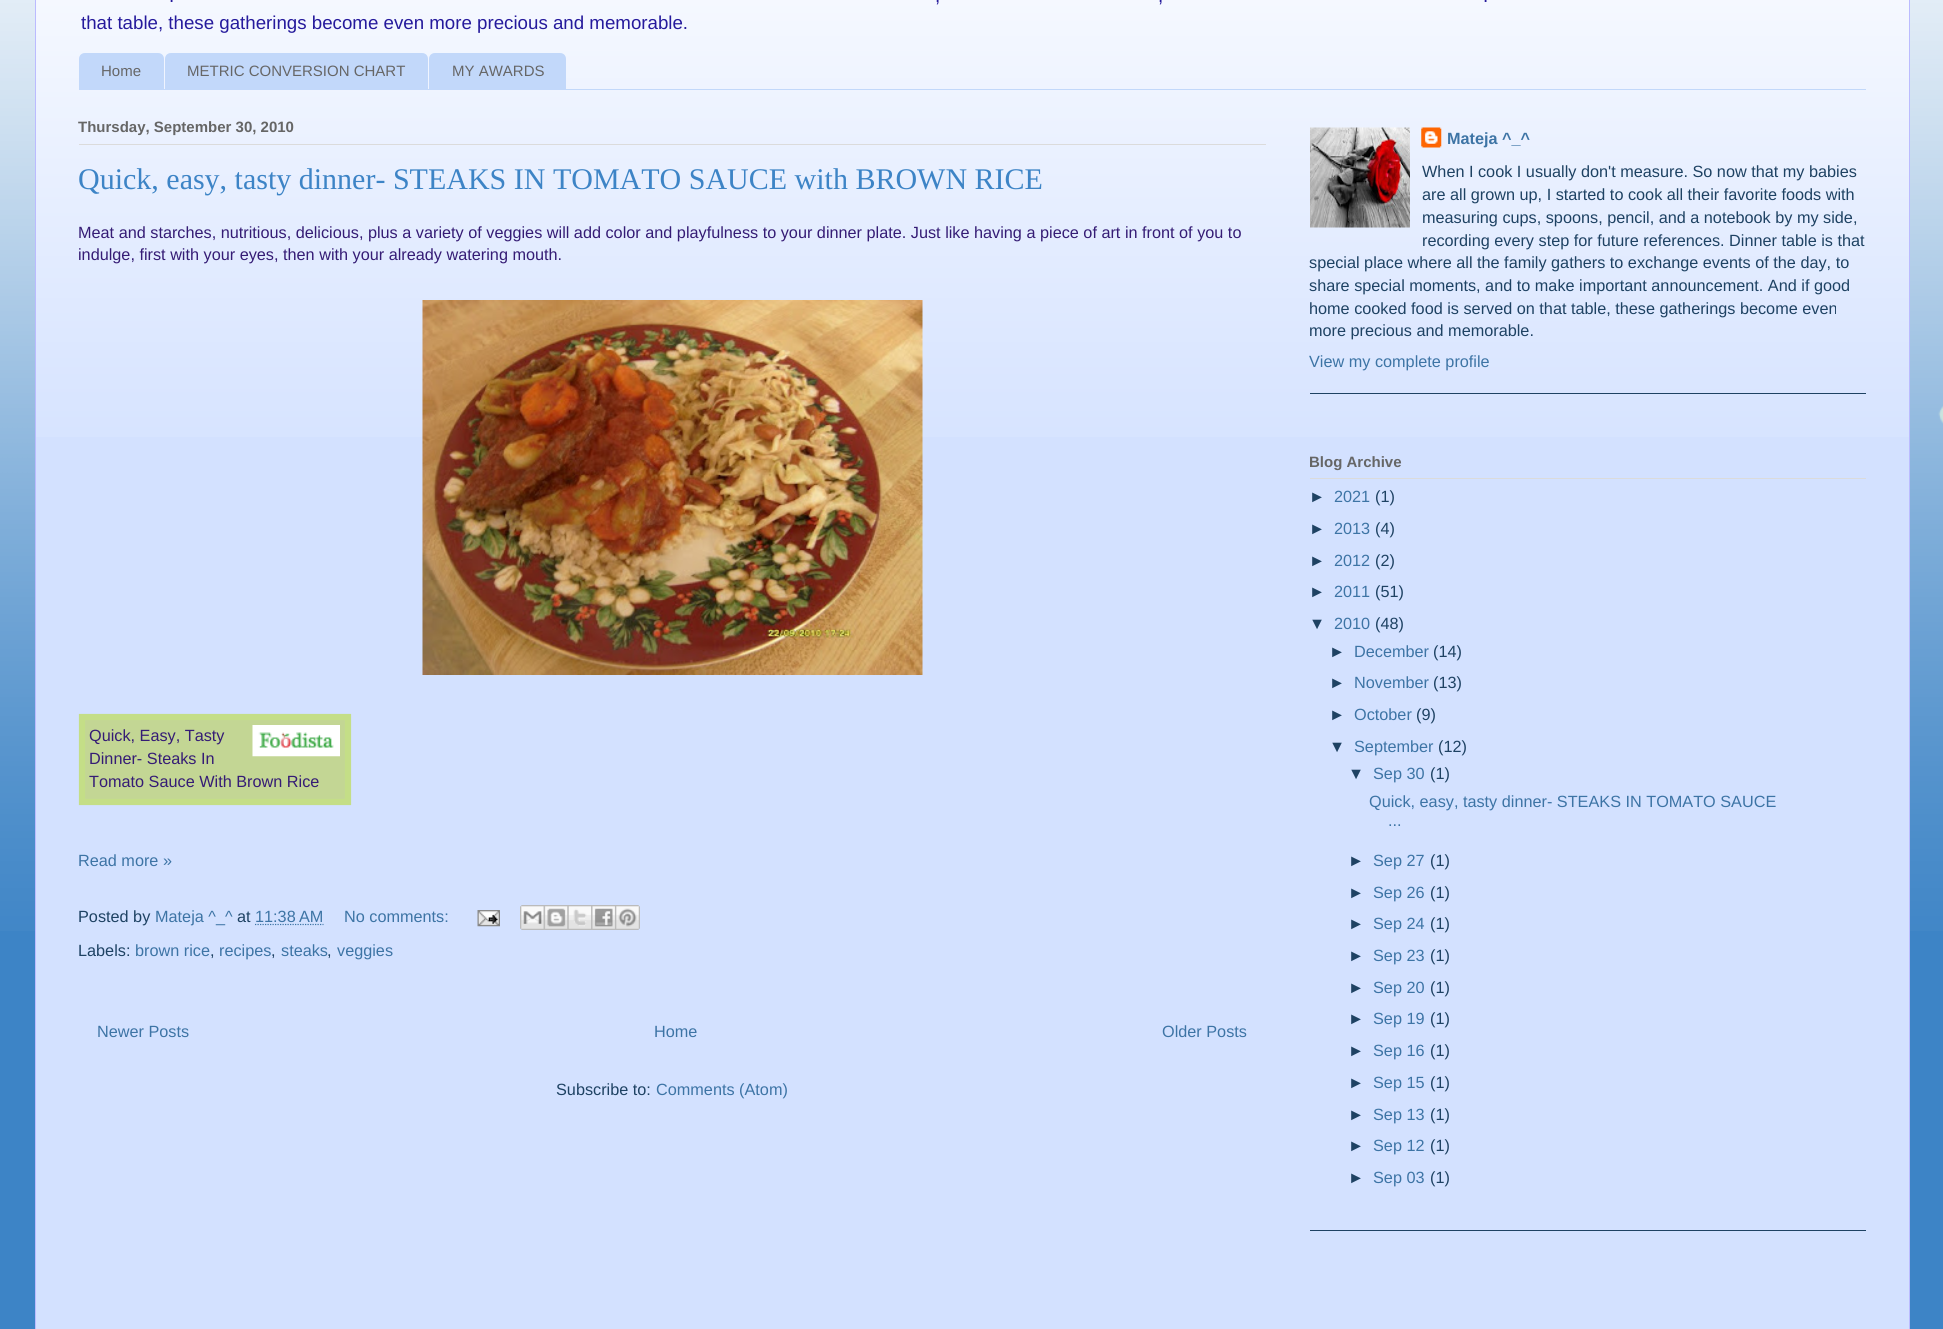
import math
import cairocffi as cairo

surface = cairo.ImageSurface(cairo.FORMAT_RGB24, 1943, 1329)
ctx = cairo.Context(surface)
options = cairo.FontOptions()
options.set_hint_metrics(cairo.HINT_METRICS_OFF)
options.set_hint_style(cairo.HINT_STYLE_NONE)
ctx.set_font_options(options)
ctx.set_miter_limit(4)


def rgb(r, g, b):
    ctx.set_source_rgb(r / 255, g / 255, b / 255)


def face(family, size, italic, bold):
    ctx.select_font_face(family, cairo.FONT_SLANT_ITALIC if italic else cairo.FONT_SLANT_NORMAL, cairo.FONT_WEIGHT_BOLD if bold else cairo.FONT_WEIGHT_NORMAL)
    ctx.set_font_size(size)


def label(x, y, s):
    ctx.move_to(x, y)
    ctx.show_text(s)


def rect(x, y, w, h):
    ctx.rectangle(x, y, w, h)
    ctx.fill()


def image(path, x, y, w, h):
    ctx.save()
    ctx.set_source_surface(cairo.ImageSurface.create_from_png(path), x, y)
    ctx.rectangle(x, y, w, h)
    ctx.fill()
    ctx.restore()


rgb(61, 132, 198)
ctx.paint()
image('image0.png', 0, 0, 1943, 931)
rgb(211, 225, 255)
rect(36, 0, 1873, 1329)
image('image1.png', 36, 0, 1873, 437)
rgb(187, 187, 255)
rect(1909, 0, 1, 1329)
rect(35, 0, 1, 1329)
face('Liberation Sans', 18.7, 0, 0)
rgb(37, 26, 156)
label(169, 2, '.')
label(935, 2, ',')
label(1158, 2, ',')
label(1483, 2, '.')
label(81, 29, 'that table, these gatherings become even more precious and memorable.')
rgb(194, 216, 250)
rect(79, 89, 1787, 1)
ctx.new_path()
ctx.move_to(85, 53)
ctx.line_to(158, 53)
ctx.curve_to(161.5, 53, 164, 55.5, 164, 59)
ctx.line_to(164, 89)
ctx.line_to(79, 89)
ctx.line_to(79, 59)
ctx.curve_to(79, 55.5, 81.5, 53, 85, 53)
ctx.close_path()
ctx.fill()
face('Liberation Sans', 15, 0, 0)
rgb(102, 102, 102)
label(101, 76, 'Home')
rgb(194, 216, 250)
ctx.new_path()
ctx.move_to(171, 53)
ctx.line_to(422, 53)
ctx.curve_to(425.5, 53, 428, 55.5, 428, 59)
ctx.line_to(428, 89)
ctx.line_to(165, 89)
ctx.line_to(165, 59)
ctx.curve_to(165, 55.5, 167.5, 53, 171, 53)
ctx.close_path()
ctx.fill()
rgb(102, 102, 102)
label(187, 76, 'METRIC CONVERSION CHART')
rgb(194, 216, 250)
ctx.new_path()
ctx.move_to(435, 53)
ctx.line_to(560, 53)
ctx.curve_to(563.5, 53, 566, 55.5, 566, 59)
ctx.line_to(566, 89)
ctx.line_to(429, 89)
ctx.line_to(429, 59)
ctx.curve_to(429, 55.5, 431.5, 53, 435, 53)
ctx.close_path()
ctx.fill()
rgb(102, 102, 102)
label(452, 76, 'MY AWARDS')
rgb(219, 219, 219)
rect(79, 144, 1187, 1)
face('Liberation Sans', 15, 0, 1)
rgb(102, 102, 102)
label(78, 132, 'Thursday, September 30, 2010')
face('Liberation Serif', 30, 0, 0)
rgb(61, 132, 198)
label(78, 189, 'Quick, easy, tasty dinner- STEAKS IN TOMATO SAUCE with BROWN RICE')
face('Liberation Sans', 16.25, 0, 0)
rgb(53, 28, 117)
label(78, 238, 'Meat and starches, nutritious, delicious, plus a variety of veggies will add color and playfulness to your dinner plate. Just like having a piece of art in front of you to')
label(78, 260, 'indulge, first with your eyes, then with your already watering mouth.')
image('image2.png', 422, 300, 501, 375)
rgb(195, 214, 148)
rect(85, 720, 260, 79)
ctx.new_path()
ctx.move_to(82, 717)
ctx.line_to(348, 717)
ctx.line_to(348, 802)
ctx.line_to(82, 802)
ctx.close_path()
rgb(196, 222, 135)
ctx.set_line_width(6.2)
ctx.stroke()
rgb(53, 28, 117)
label(89, 741, 'Quick, Easy, Tasty')
image('image3.png', 252, 725, 88, 32)
label(89, 764, 'Dinner- Steaks In')
label(89, 787, 'Tomato Sauce With Brown Rice')
rgb(61, 116, 165)
label(78, 866, 'Read more »')
rgb(30, 66, 99)
label(78, 922, 'Posted by')
rgb(61, 116, 165)
label(155, 922, 'Mateja ^_^')
rgb(30, 66, 99)
label(237, 922, 'at')
rgb(61, 116, 165)
label(255, 922, '11:38 AM')
ctx.new_path()
ctx.move_to(255, 924.5)
ctx.line_to(323.5, 924.5)
ctx.set_line_width(1.2)
ctx.set_dash([1.25, 1.25])
ctx.stroke()
label(344, 922, 'No comments:')
image('image4.png', 477, 910, 23, 17)
image('image5.png', 520, 905, 24, 25)
image('image6.png', 543, 905, 25, 25)
image('image7.png', 567, 905, 25, 25)
image('image8.png', 591, 905, 24, 25)
image('image9.png', 615, 905, 25, 25)
rgb(30, 66, 99)
label(78, 956, 'Labels:')
rgb(61, 116, 165)
label(135, 956, 'brown rice')
rgb(30, 66, 99)
label(210, 956, ',')
rgb(61, 116, 165)
label(219, 956, 'recipes')
rgb(30, 66, 99)
label(271, 956, ',')
rgb(61, 116, 165)
label(281, 956, 'steaks')
rgb(30, 66, 99)
label(327, 956, ',')
rgb(61, 116, 165)
label(337, 956, 'veggies')
label(97, 1037, 'Newer Posts')
label(654, 1037, 'Home')
label(1162, 1037, 'Older Posts')
rgb(30, 66, 99)
label(556, 1095, 'Subscribe to:')
rgb(61, 116, 165)
label(656, 1095, 'Comments (Atom)')
rgb(30, 66, 99)
rect(1310, 393, 556, 1)
image('image10.png', 1310, 127, 100, 101)
image('image11.png', 1421, 127, 21, 21)
face('Liberation Sans', 16.25, 0, 1)
rgb(61, 116, 165)
label(1447, 144, 'Mateja ^_^')
face('Liberation Sans', 16.25, 0, 0)
rgb(30, 66, 99)
label(1422, 177, 'When I cook I usually don\'t measure. So now that my babies')
label(1422, 200, 'are all grown up, I started to cook all their favorite foods with')
label(1422, 223, 'measuring cups, spoons, pencil, and a notebook by my side,')
label(1422, 246, 'recording every step for future references. Dinner table is that')
label(1309, 268, 'special place where all the family gathers to exchange events of the day, to')
label(1309, 291, 'share special moments, and to make important announcement. And if good')
label(1309, 314, 'home cooked food is served on that table, these gatherings become even')
label(1309, 336, 'more precious and memorable.')
rgb(61, 116, 165)
label(1309, 367, 'View my complete profile')
rgb(30, 66, 99)
rect(1310, 1230, 556, 1)
rgb(219, 219, 219)
rect(1310, 478, 556, 1)
face('Liberation Sans', 15, 0, 1)
rgb(102, 102, 102)
label(1309, 467, 'Blog Archive')
face('Liberation Sans', 16.25, 0, 0)
rgb(30, 66, 99)
label(1309, 502, '►')
rgb(61, 116, 165)
label(1334, 502, '2021')
rgb(30, 66, 99)
label(1375, 502, '(1)')
label(1309, 534, '►')
rgb(61, 116, 165)
label(1334, 534, '2013')
rgb(30, 66, 99)
label(1375, 534, '(4)')
label(1309, 566, '►')
rgb(61, 116, 165)
label(1334, 566, '2012')
rgb(30, 66, 99)
label(1375, 566, '(2)')
label(1309, 597, '►')
rgb(61, 116, 165)
label(1334, 597, '2011')
rgb(30, 66, 99)
label(1375, 597, '(51)')
label(1309, 629, '▼')
rgb(61, 116, 165)
label(1334, 629, '2010')
rgb(30, 66, 99)
label(1375, 629, '(48)')
label(1329, 657, '►')
rgb(61, 116, 165)
label(1354, 657, 'December')
rgb(30, 66, 99)
label(1433, 657, '(14)')
label(1329, 688, '►')
rgb(61, 116, 165)
label(1354, 688, 'November')
rgb(30, 66, 99)
label(1433, 688, '(13)')
label(1329, 720, '►')
rgb(61, 116, 165)
label(1354, 720, 'October')
rgb(30, 66, 99)
label(1416, 720, '(9)')
label(1329, 752, '▼')
rgb(61, 116, 165)
label(1354, 752, 'September')
rgb(30, 66, 99)
label(1438, 752, '(12)')
label(1348, 779, '▼')
rgb(61, 116, 165)
label(1373, 779, 'Sep 30')
rgb(30, 66, 99)
label(1430, 779, '(1)')
rgb(61, 116, 165)
label(1369, 807, 'Quick, easy, tasty dinner- STEAKS IN TOMATO SAUCE')
label(1388, 826, '...')
rgb(30, 66, 99)
label(1348, 866, '►')
rgb(61, 116, 165)
label(1373, 866, 'Sep 27')
rgb(30, 66, 99)
label(1430, 866, '(1)')
label(1348, 898, '►')
rgb(61, 116, 165)
label(1373, 898, 'Sep 26')
rgb(30, 66, 99)
label(1430, 898, '(1)')
label(1348, 929, '►')
rgb(61, 116, 165)
label(1373, 929, 'Sep 24')
rgb(30, 66, 99)
label(1430, 929, '(1)')
label(1348, 961, '►')
rgb(61, 116, 165)
label(1373, 961, 'Sep 23')
rgb(30, 66, 99)
label(1430, 961, '(1)')
label(1348, 993, '►')
rgb(61, 116, 165)
label(1373, 993, 'Sep 20')
rgb(30, 66, 99)
label(1430, 993, '(1)')
label(1348, 1024, '►')
rgb(61, 116, 165)
label(1373, 1024, 'Sep 19')
rgb(30, 66, 99)
label(1430, 1024, '(1)')
label(1348, 1056, '►')
rgb(61, 116, 165)
label(1373, 1056, 'Sep 16')
rgb(30, 66, 99)
label(1430, 1056, '(1)')
label(1348, 1088, '►')
rgb(61, 116, 165)
label(1373, 1088, 'Sep 15')
rgb(30, 66, 99)
label(1430, 1088, '(1)')
label(1348, 1120, '►')
rgb(61, 116, 165)
label(1373, 1120, 'Sep 13')
rgb(30, 66, 99)
label(1430, 1120, '(1)')
label(1348, 1151, '►')
rgb(61, 116, 165)
label(1373, 1151, 'Sep 12')
rgb(30, 66, 99)
label(1430, 1151, '(1)')
label(1348, 1183, '►')
rgb(61, 116, 165)
label(1373, 1183, 'Sep 03')
rgb(30, 66, 99)
label(1430, 1183, '(1)')
surface.write_to_png('render.png')
